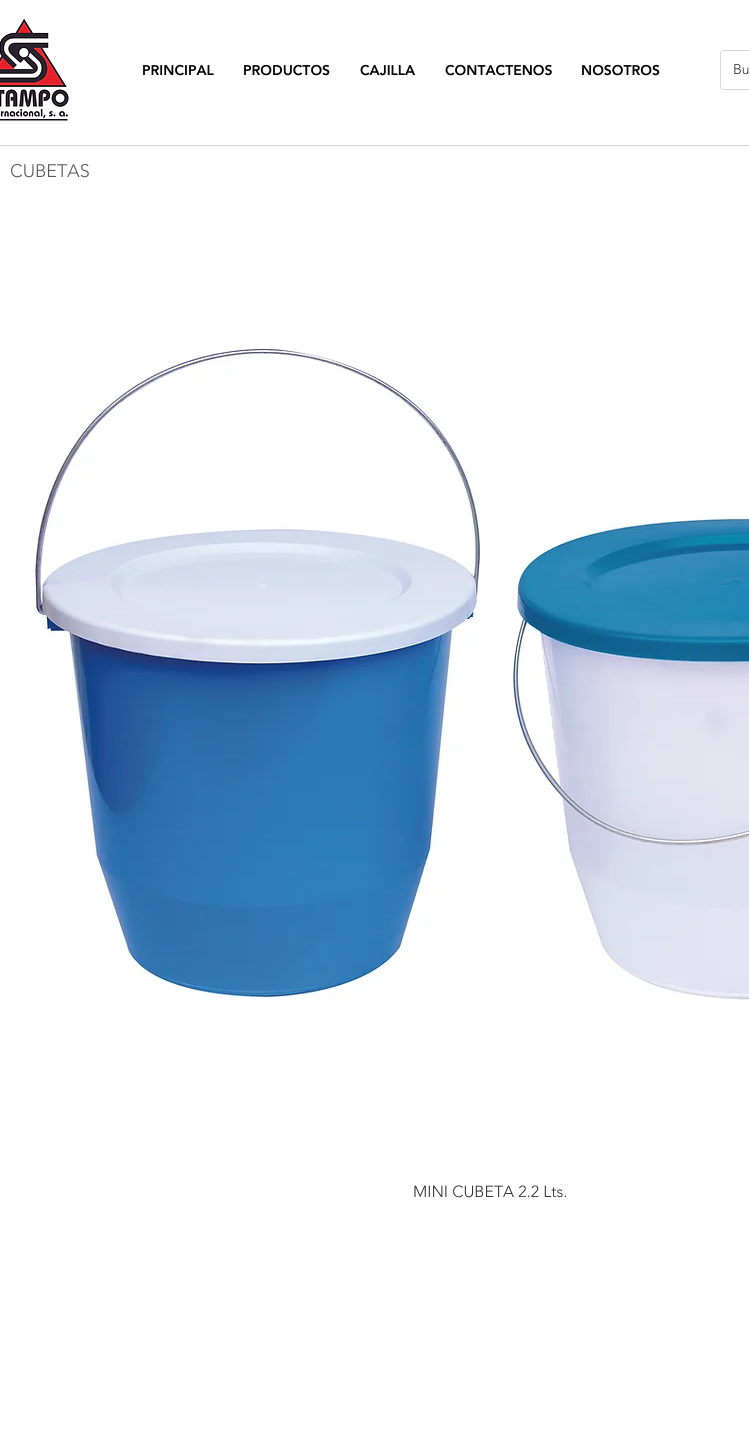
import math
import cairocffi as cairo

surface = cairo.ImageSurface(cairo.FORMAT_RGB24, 749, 1430)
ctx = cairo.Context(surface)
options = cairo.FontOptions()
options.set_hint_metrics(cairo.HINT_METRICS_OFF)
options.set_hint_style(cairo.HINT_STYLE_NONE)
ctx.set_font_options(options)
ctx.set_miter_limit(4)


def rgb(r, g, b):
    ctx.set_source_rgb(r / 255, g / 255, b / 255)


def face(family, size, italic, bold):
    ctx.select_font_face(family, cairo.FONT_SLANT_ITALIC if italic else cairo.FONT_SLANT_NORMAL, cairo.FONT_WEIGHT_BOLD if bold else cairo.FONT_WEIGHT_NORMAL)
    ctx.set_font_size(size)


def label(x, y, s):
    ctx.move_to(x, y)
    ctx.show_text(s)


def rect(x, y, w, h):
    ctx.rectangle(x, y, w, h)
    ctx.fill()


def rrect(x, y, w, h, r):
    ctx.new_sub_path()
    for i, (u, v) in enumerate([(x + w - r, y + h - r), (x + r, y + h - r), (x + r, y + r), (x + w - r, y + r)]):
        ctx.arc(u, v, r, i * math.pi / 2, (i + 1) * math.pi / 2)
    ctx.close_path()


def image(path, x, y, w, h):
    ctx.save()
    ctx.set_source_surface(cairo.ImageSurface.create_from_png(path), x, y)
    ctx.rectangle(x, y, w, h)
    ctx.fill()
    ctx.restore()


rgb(255, 255, 255)
ctx.paint()
image('image0.png', 0, 19, 69, 102)
face('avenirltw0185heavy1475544 Black', 14, 0, 0)
rgb(0, 0, 0)
label(142, 75, 'PRINCIPAL')
label(243, 75, 'PRODUCTOS')
label(360, 75, 'CAJILLA')
label(445, 75, 'CONTACTENOS')
label(581, 75, 'NOSOTROS')
rrect(720.5, 50.5, 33, 39, 3.5)
rgb(214, 214, 214)
ctx.set_line_width(1)
ctx.stroke()
rgb(255, 255, 255)
rrect(721, 51, 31, 38, 3)
ctx.fill()
face('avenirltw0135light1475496 Light', 14, 0, 0)
rgb(48, 48, 48)
label(733, 74, 'Bu')
rgb(212, 212, 212)
rect(0, 145, 749, 1)
face('avenirltw0135light1475496 Light', 18, 0, 0)
rgb(89, 89, 89)
label(10, 177, 'CUBETAS')
image('image1.png', 32, 346, 717, 657)
face('avenirltw0135light1475496 Light', 16, 0, 0)
rgb(48, 48, 48)
label(413, 1197, 'MINI CUBETA 2.2 Lts.')
surface.write_to_png('render.png')
